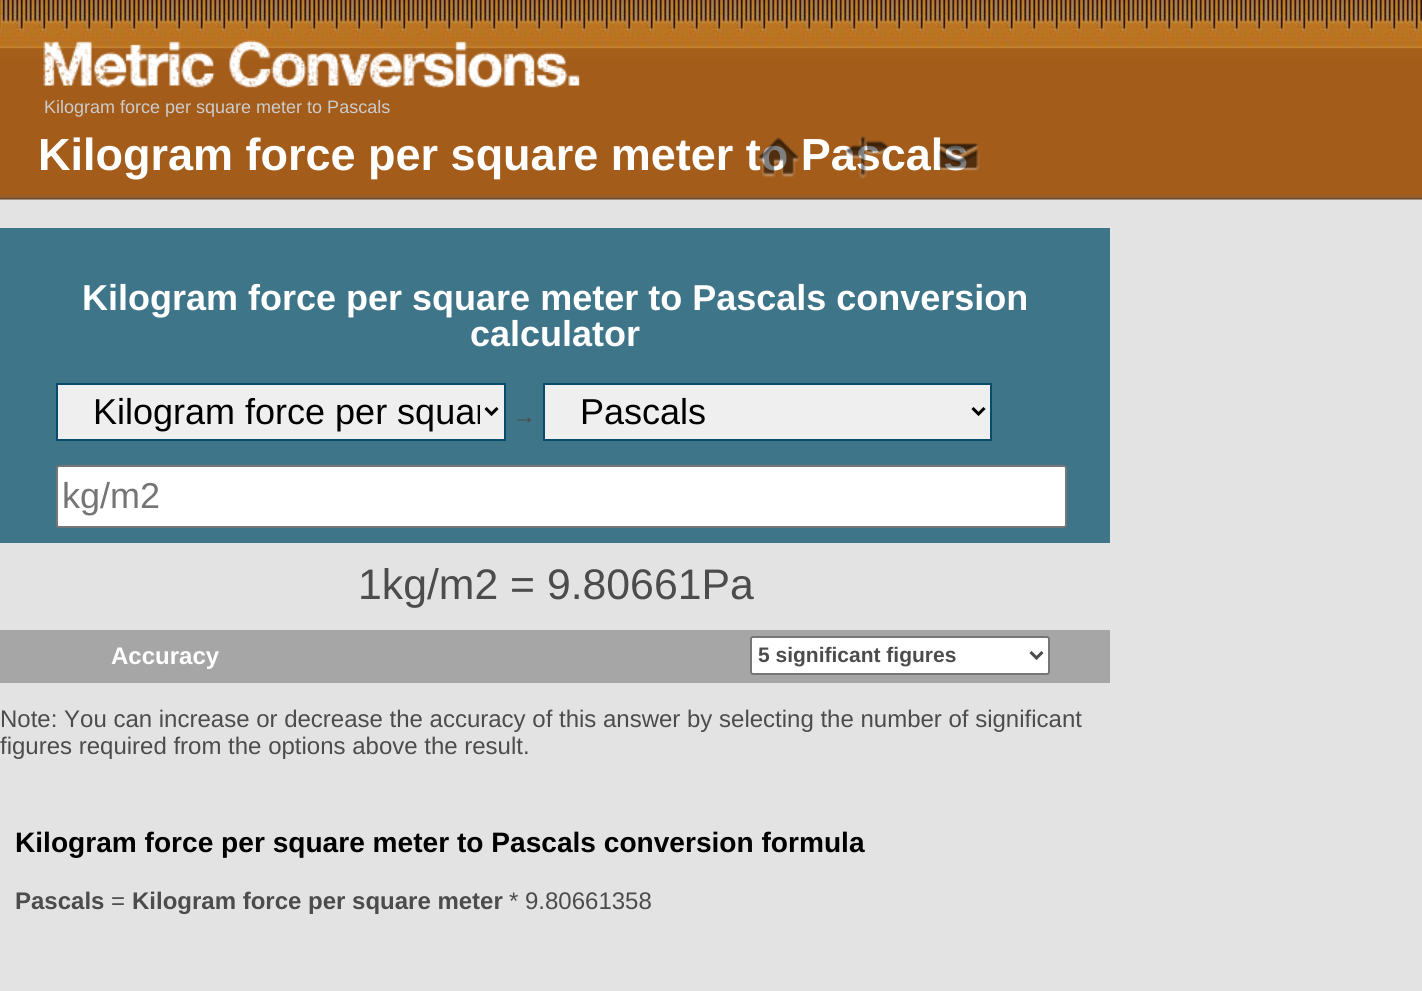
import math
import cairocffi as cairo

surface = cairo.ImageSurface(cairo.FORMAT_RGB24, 1422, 991)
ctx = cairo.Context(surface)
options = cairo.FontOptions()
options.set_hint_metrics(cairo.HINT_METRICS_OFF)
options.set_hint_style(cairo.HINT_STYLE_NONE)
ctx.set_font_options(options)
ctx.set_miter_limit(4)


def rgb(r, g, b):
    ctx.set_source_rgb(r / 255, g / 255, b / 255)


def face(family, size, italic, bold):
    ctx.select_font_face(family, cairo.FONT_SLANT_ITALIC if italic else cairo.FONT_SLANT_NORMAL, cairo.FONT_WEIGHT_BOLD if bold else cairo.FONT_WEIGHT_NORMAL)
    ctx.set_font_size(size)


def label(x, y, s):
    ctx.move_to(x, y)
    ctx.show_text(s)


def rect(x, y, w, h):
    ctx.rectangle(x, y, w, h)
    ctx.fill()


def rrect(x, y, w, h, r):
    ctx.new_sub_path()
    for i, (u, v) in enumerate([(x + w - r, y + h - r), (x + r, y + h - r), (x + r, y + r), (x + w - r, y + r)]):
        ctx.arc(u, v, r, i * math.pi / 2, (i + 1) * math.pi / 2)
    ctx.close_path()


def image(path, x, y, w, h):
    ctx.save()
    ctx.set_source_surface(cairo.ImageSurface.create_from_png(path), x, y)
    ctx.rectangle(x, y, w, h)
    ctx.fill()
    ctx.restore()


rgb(227, 227, 227)
ctx.paint()
image('image0.png', 0, 0, 1422, 200)
image('image1.png', 43, 40, 537, 48)
face('Liberation Sans', 18, 0, 0)
rgb(204, 204, 204)
label(44, 113, 'Kilogram force per square meter to Pascals')
face('Liberation Sans', 45, 0, 1)
rgb(255, 255, 255)
label(38, 170, 'Kilogram force per square meter to Pascals')
image('image2.png', 757, 137, 43, 41)
image('image3.png', 845, 136, 44, 43)
image('image4.png', 938, 143, 42, 28)
rgb(62, 117, 137)
rect(0, 228, 1110, 315)
face('Liberation Sans', 36, 0, 1)
rgb(255, 255, 255)
label(82, 310, 'Kilogram force per square meter to Pascals conversion')
label(470, 346, 'calculator')
rgb(239, 239, 239)
ctx.rectangle(57, 384, 448, 56)
ctx.fill_preserve()
rgb(6, 77, 107)
ctx.stroke()
ctx.new_path()
ctx.move_to(485.5, 408)
ctx.line_to(491.5, 414)
ctx.line_to(497.5, 408)
rgb(0, 0, 0)
ctx.set_line_width(3)
ctx.stroke()
ctx.save()
ctx.rectangle(93, 390, 387, 44)
ctx.clip()
face('Liberation Sans', 36, 0, 0)
label(93, 424, 'Kilogram force per squar')
ctx.restore()
face('Liberation Sans', 24, 0, 0)
rgb(76, 76, 76)
label(512, 424, '→')
rgb(239, 239, 239)
ctx.rectangle(544, 384, 447, 56)
ctx.fill_preserve()
rgb(6, 77, 107)
ctx.set_line_width(2)
ctx.stroke()
ctx.new_path()
ctx.move_to(972.5, 408)
ctx.line_to(978.5, 414)
ctx.line_to(984.5, 408)
rgb(0, 0, 0)
ctx.set_line_width(3)
ctx.stroke()
face('Liberation Sans', 36, 0, 0)
label(580, 424, 'Pascals')
rgb(255, 255, 255)
rrect(57, 466, 1009, 61, 2)
ctx.fill_preserve()
rgb(118, 118, 118)
ctx.set_line_width(2)
ctx.stroke()
rgb(117, 117, 117)
label(62, 508, 'kg/m2')
face('Liberation Sans', 42.75, 0, 0)
rgb(76, 76, 76)
label(358, 599, '1kg/m2 = 9.80661Pa')
rgb(166, 166, 166)
rect(0, 630, 1110, 53)
face('Liberation Sans', 24, 0, 1)
rgb(255, 255, 255)
label(111, 664, 'Accuracy')
rrect(751, 637, 298, 37, 2)
ctx.fill_preserve()
rgb(118, 118, 118)
ctx.stroke()
ctx.new_path()
ctx.move_to(1030.5, 652)
ctx.line_to(1036.5, 658)
ctx.line_to(1042.5, 652)
rgb(76, 76, 76)
ctx.set_line_width(3)
ctx.stroke()
face('Liberation Sans', 21, 0, 1)
label(758, 662, '5 significant figures')
face('Liberation Sans', 24, 0, 0)
label(0, 727, 'Note: You can increase or decrease the accuracy of this answer by selecting the number of significant')
label(0, 754, 'figures required from the options above the result.')
face('Liberation Sans', 28.1, 0, 1)
rgb(0, 0, 0)
label(15, 852, 'Kilogram force per square meter to Pascals conversion formula')
face('Liberation Sans', 24, 0, 1)
rgb(76, 76, 76)
label(15, 909, 'Pascals')
face('Liberation Sans', 24, 0, 0)
label(111, 909, '=')
face('Liberation Sans', 24, 0, 1)
label(132, 909, 'Kilogram force per square meter')
face('Liberation Sans', 24, 0, 0)
label(509, 909, '* 9.80661358')
surface.write_to_png('render.png')
